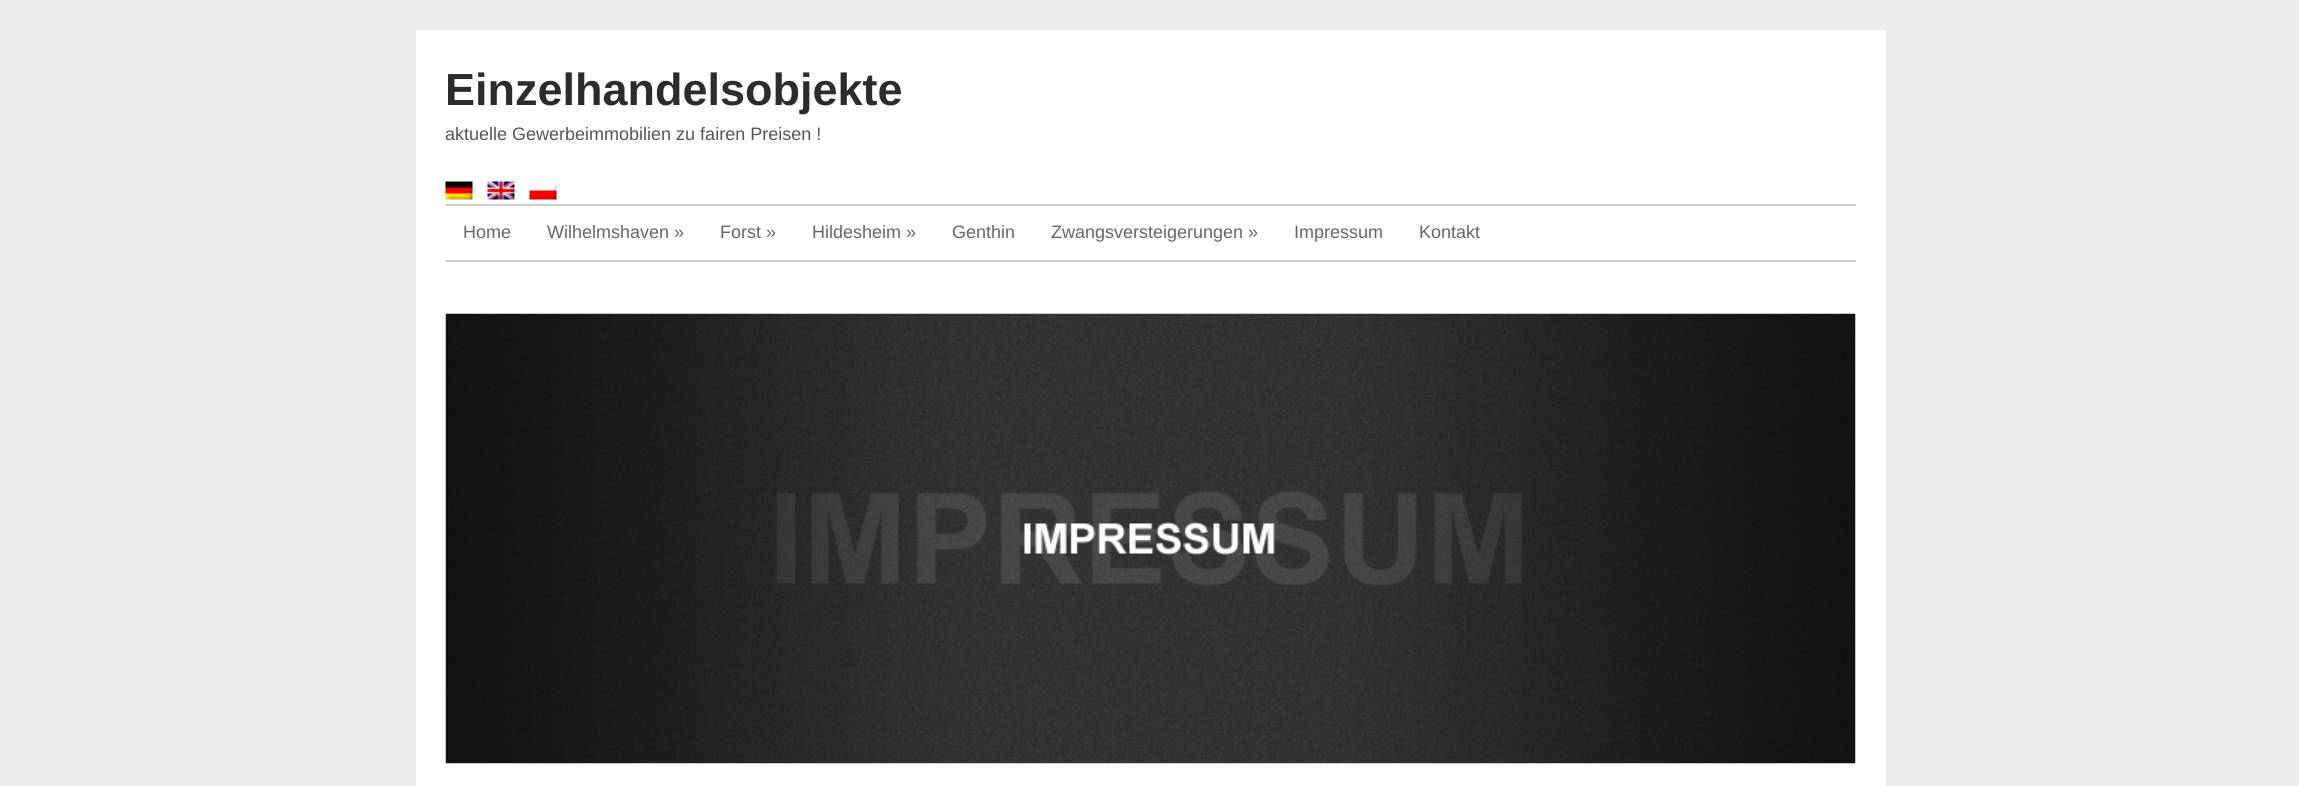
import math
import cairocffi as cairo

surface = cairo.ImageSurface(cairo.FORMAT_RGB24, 2299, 786)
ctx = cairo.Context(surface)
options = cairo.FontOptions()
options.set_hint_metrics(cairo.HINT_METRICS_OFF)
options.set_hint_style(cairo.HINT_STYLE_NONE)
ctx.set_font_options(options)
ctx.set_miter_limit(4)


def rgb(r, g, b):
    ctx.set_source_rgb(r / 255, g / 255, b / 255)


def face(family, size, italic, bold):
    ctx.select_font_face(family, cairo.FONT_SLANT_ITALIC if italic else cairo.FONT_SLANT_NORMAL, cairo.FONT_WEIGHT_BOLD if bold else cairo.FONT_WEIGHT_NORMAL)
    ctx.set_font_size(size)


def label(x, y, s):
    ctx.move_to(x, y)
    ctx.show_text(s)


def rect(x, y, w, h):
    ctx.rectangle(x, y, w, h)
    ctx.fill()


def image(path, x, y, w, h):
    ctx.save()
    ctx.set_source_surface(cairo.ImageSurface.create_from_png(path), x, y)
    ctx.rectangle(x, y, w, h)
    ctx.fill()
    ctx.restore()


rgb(235, 236, 235)
ctx.paint()
rgb(255, 255, 255)
rect(416, 30, 1470, 756)
face('Liberation Sans', 45, 0, 1)
rgb(44, 44, 44)
label(445, 105, 'Einzelhandelsobjekte')
face('Liberation Sans', 18, 0, 0)
rgb(85, 85, 85)
label(445, 140, 'aktuelle Gewerbeimmobilien zu fairen Preisen !')
image('image0.png', 445, 181, 28, 19)
image('image1.png', 487, 181, 28, 19)
image('image2.png', 529, 184, 28, 16)
rgb(204, 204, 204)
rect(446, 204, 1410, 2)
rect(446, 260, 1410, 2)
rgb(102, 102, 102)
label(463, 238, 'Home')
label(547, 238, 'Wilhelmshaven »')
label(720, 238, 'Forst »')
label(812, 238, 'Hildesheim »')
label(952, 238, 'Genthin')
label(1051, 238, 'Zwangsversteigerungen »')
label(1294, 238, 'Impressum')
label(1419, 238, 'Kontakt')
image('image3.png', 445, 313, 1411, 451)
surface.write_to_png('render.png')
